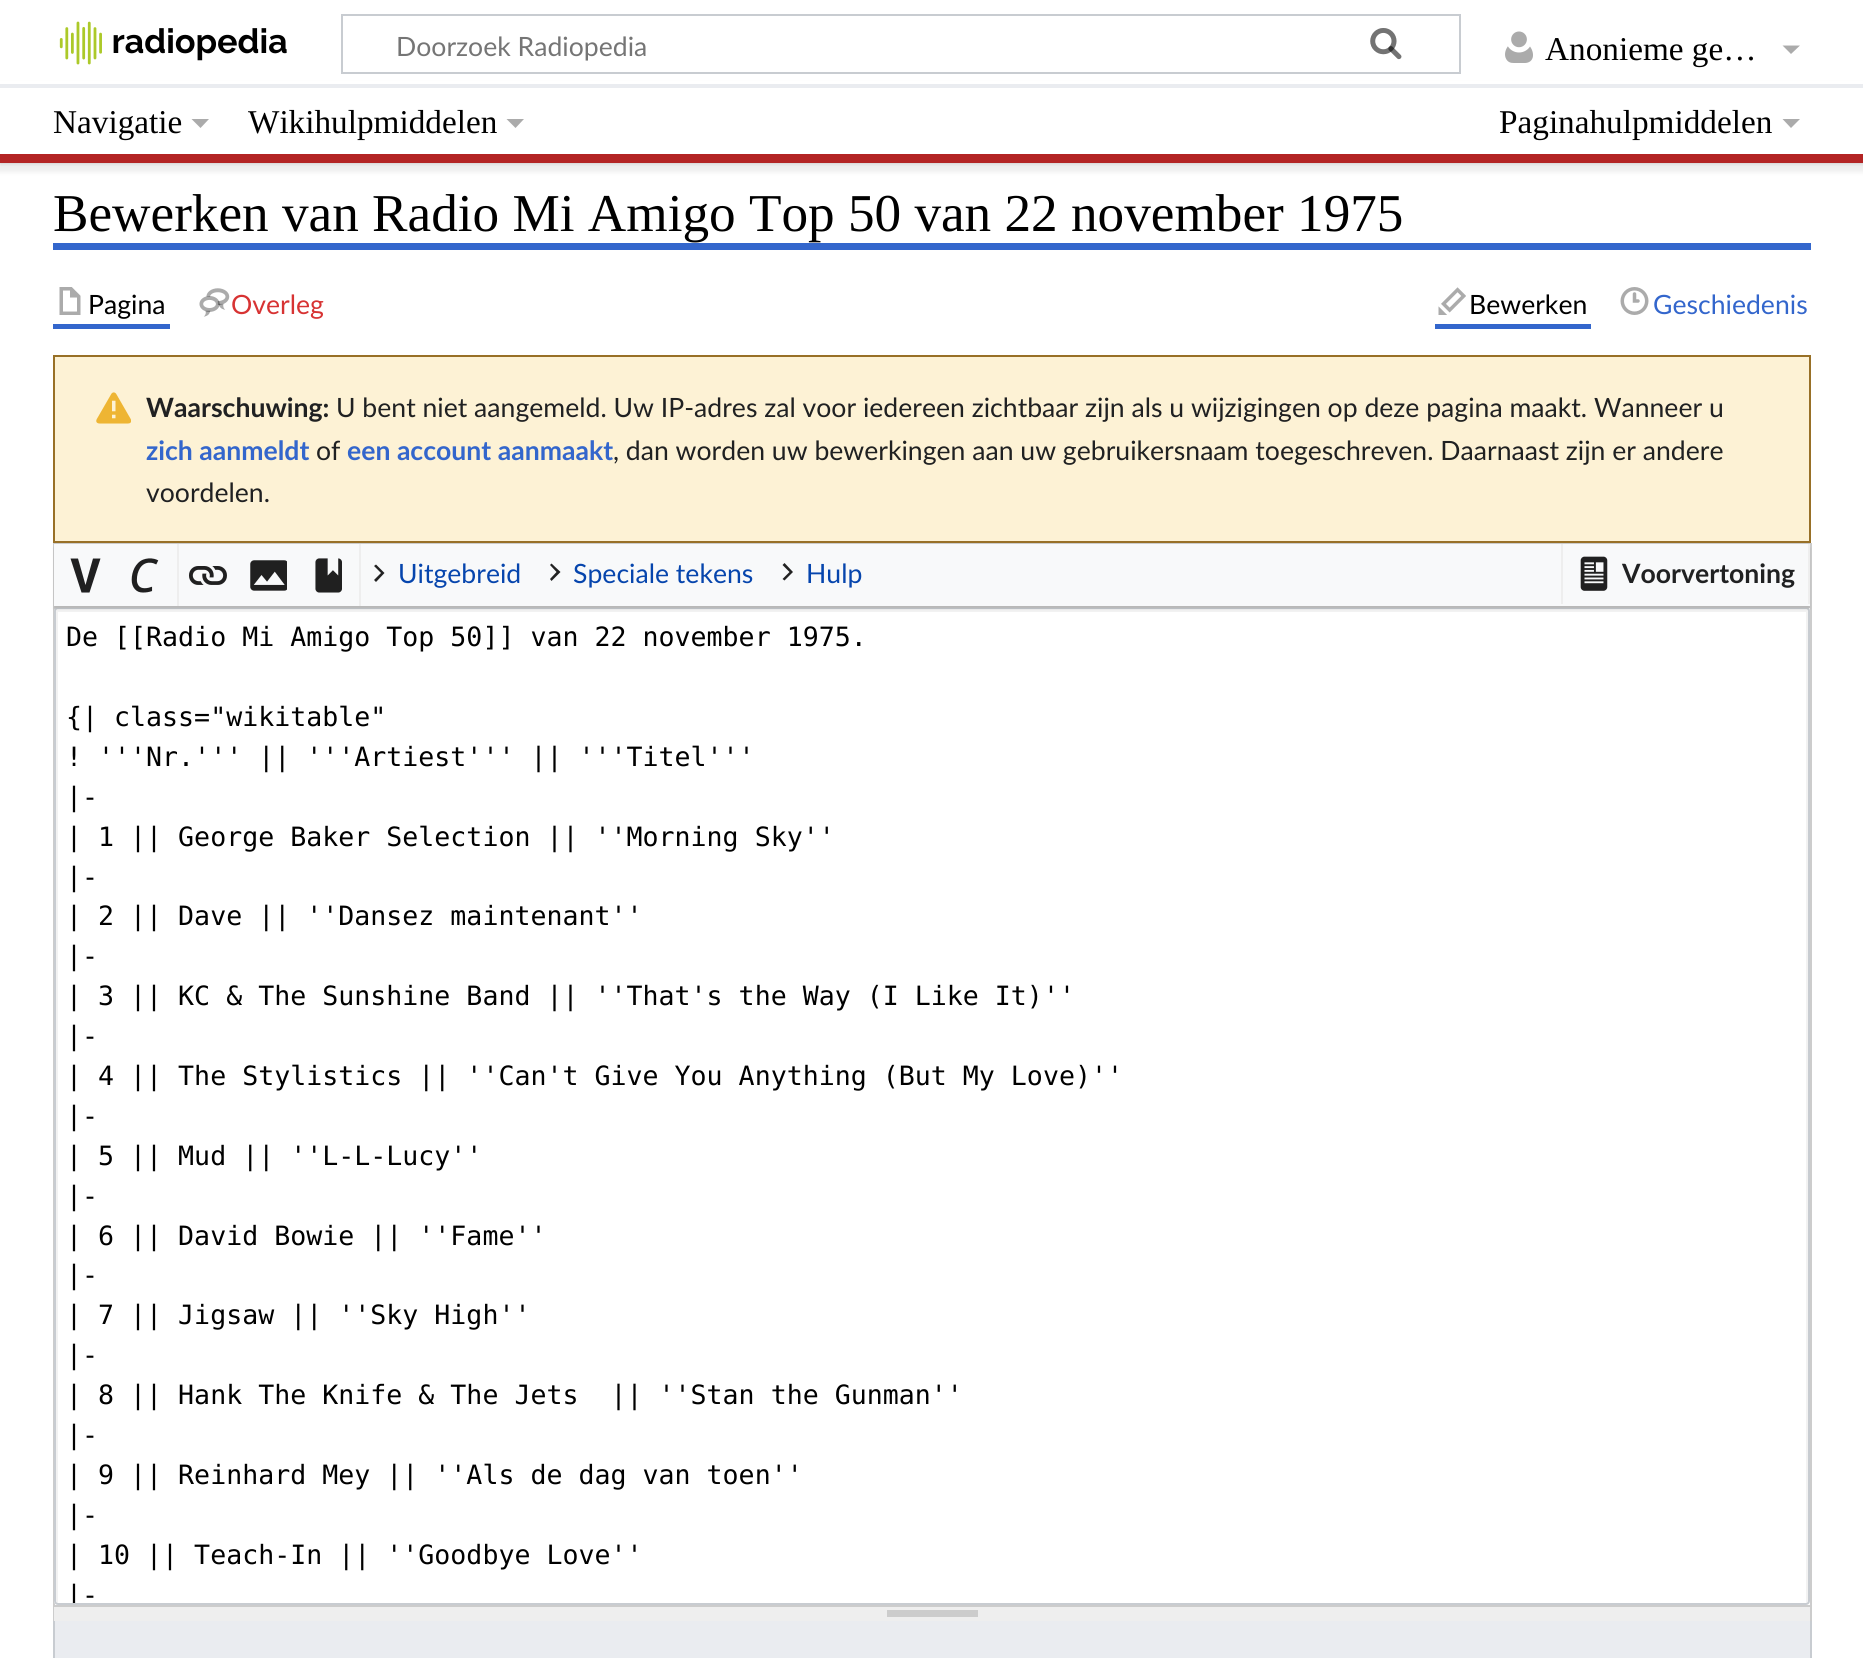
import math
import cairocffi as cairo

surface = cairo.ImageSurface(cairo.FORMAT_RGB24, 1863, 1658)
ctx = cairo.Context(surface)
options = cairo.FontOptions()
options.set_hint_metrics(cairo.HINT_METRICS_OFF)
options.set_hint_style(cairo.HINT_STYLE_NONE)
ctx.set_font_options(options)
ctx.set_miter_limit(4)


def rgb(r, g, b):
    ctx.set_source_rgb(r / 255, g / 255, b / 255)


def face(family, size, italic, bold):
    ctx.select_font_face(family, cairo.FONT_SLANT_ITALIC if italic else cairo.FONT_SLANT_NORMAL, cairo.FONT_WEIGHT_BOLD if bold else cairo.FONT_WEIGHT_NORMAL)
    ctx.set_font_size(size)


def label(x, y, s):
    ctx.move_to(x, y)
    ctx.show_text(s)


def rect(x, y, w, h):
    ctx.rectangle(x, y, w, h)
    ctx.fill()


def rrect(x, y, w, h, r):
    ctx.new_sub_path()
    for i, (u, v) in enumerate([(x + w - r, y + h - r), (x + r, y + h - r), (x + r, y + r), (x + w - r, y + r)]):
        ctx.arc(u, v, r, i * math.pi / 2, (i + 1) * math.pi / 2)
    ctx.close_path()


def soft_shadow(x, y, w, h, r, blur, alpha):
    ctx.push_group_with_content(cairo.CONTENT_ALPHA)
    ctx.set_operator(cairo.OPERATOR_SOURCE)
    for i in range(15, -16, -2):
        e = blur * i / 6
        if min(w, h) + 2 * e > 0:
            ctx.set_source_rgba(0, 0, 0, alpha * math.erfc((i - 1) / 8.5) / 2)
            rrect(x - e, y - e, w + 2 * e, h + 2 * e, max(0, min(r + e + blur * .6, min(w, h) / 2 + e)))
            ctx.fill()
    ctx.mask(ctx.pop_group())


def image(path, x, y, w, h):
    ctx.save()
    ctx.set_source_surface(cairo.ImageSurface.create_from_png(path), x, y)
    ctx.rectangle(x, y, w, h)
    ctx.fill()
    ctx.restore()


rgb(255, 255, 255)
ctx.paint()
rgb(0, 0, 0)
soft_shadow(0, 84, 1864, 79, 0, 2, 0.2)
soft_shadow(-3, 86, 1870, 86, 0, 2.5, 0.07)
rgb(255, 255, 255)
rect(0, 81, 1863, 3)
image('image0.png', 59, 21, 228, 44)
ctx.rectangle(342, 15, 1118, 58)
rgb(200, 204, 209)
ctx.stroke()
image('image1.png', 1370, 28, 32, 32)
face('Lato', 26.6, 0, 0)
rgb(117, 117, 117)
label(396, 56, 'Doorzoek Radiopedia')
image('image2.png', 1370, 28, 32, 32)
image('image3.png', 1505, 31, 28, 32)
face('Liberation Serif', 33.25, 0, 0)
rgb(0, 0, 0)
label(1545, 60, 'Anonieme ge…')
rgb(171, 171, 171)
ctx.new_path()
ctx.move_to(1800, 45.5)
ctx.line_to(1791, 54)
ctx.line_to(1782.5, 45.5)
ctx.close_path()
ctx.fill()
rgb(255, 255, 255)
rect(0, 88, 1863, 66)
rgb(234, 236, 240)
rect(0, 84, 1863, 4)
rgb(179, 36, 36)
rect(0, 154, 1863, 9)
rgb(0, 0, 0)
label(53, 133, 'Navigatie')
rgb(171, 171, 171)
ctx.new_path()
ctx.move_to(209, 119)
ctx.line_to(200.5, 128)
ctx.line_to(191.5, 119)
ctx.close_path()
ctx.fill()
rgb(0, 0, 0)
label(248, 133, 'Wikihulpmiddelen')
rgb(171, 171, 171)
ctx.new_path()
ctx.move_to(524, 119)
ctx.line_to(515.5, 128)
ctx.line_to(506.5, 119)
ctx.close_path()
ctx.fill()
rgb(0, 0, 0)
label(1499, 133, 'Paginahulpmiddelen')
rgb(171, 171, 171)
ctx.new_path()
ctx.move_to(1800, 119)
ctx.line_to(1791, 128)
ctx.line_to(1782.5, 119)
ctx.close_path()
ctx.fill()
rgb(51, 102, 204)
rect(53, 243, 1758, 7)
face('Liberation Serif', 53.2, 0, 0)
rgb(0, 0, 0)
label(53, 231, 'Bewerken van Radio Mi Amigo Top 50 van 22 november 1975')
rgb(51, 102, 204)
rect(53, 324, 117, 5)
image('image4.png', 59, 287, 22, 28)
face('Lato', 26.6, 0, 0)
rgb(0, 0, 0)
label(88, 314, 'Pagina')
image('image5.png', 199, 288, 31, 29)
rgb(215, 51, 51)
label(231, 314, 'Overleg')
rgb(51, 102, 204)
rect(1435, 324, 156, 5)
image('image6.png', 1438, 287, 28, 28)
rgb(0, 0, 0)
label(1469, 314, 'Bewerken')
image('image7.png', 1620, 287, 29, 28)
rgb(51, 102, 204)
label(1653, 314, 'Geschiedenis')
rgb(253, 242, 213)
ctx.rectangle(54, 356, 1756, 186)
ctx.fill_preserve()
rgb(152, 112, 39)
ctx.stroke()
image('image8.png', 96, 392, 35, 32)
face('Lato', 26.6, 0, 1)
rgb(32, 33, 34)
label(146, 417, 'Waarschuwing:')
face('Lato', 26.6, 0, 0)
label(336, 417, 'U bent niet aangemeld. Uw IP-adres zal voor iedereen zichtbaar zijn als u wijzigingen op deze pagina maakt. Wanneer u')
face('Lato', 26.6, 0, 1)
rgb(51, 102, 204)
label(146, 460, 'zich aanmeldt')
face('Lato', 26.6, 0, 0)
rgb(32, 33, 34)
label(316, 460, 'of')
face('Lato', 26.6, 0, 1)
rgb(51, 102, 204)
label(347, 460, 'een account aanmaakt')
face('Lato', 26.6, 0, 0)
rgb(32, 33, 34)
label(613, 460, ', dan worden uw bewerkingen aan uw gebruikersnaam toegeschreven. Daarnaast zijn er andere')
label(146, 502, 'voordelen.')
rgb(204, 204, 204)
rect(53, 543, 1758, 1)
rect(1810, 543, 2, 1078)
rect(53, 543, 2, 1078)
rgb(255, 255, 255)
rrect(54, 607, 1756, 998, 4)
ctx.fill()
rgb(242, 242, 242)
ctx.new_path()
ctx.move_to(58, 612)
ctx.line_to(1806, 612)
ctx.line_to(1806, 1603)
ctx.curve_to(1807, 1603, 1808, 1602, 1808, 1601)
ctx.line_to(1808, 611)
ctx.curve_to(1808, 610, 1807, 609, 1806, 609)
ctx.line_to(58, 609)
ctx.curve_to(57, 609, 56, 610, 56, 611)
ctx.line_to(56, 1601)
ctx.curve_to(56, 1602, 57, 1603, 58, 1603)
ctx.close_path()
ctx.fill()
rrect(55, 608, 1754, 996, 3)
rgb(200, 204, 209)
ctx.stroke()
rgb(204, 204, 204)
rect(54, 606, 1756, 2)
rgb(0, 0, 0)
soft_shadow(54, 548, 1756, 61, 0, 1, 0.1)
rgb(248, 249, 250)
rect(54, 544, 1756, 62)
rgb(238, 238, 238)
rect(177, 544, 2, 62)
rgb(32, 32, 33)
ctx.new_path()
ctx.move_to(89.5, 592.5)
ctx.line_to(100.5, 558.5)
ctx.line_to(93, 558.5)
ctx.line_to(85.5, 585)
ctx.line_to(78, 558.5)
ctx.line_to(70.5, 558.5)
ctx.line_to(81.5, 592.5)
ctx.close_path()
ctx.fill()
image('image9.png', 131, 558, 28, 35)
rgb(238, 238, 238)
rect(359, 544, 2, 62)
image('image10.png', 189, 566, 38, 19)
image('image11.png', 250, 560, 37, 31)
image('image12.png', 315, 558, 27, 35)
rgb(34, 34, 34)
ctx.new_path()
ctx.move_to(374, 566)
ctx.line_to(381, 573)
ctx.line_to(374, 580)
ctx.line_to(376, 582)
ctx.line_to(384.5, 573)
ctx.line_to(376, 564.5)
ctx.close_path()
ctx.fill()
rgb(6, 69, 173)
label(398, 583, 'Uitgebreid')
rgb(34, 34, 34)
ctx.new_path()
ctx.move_to(550, 565)
ctx.line_to(556.5, 572)
ctx.line_to(550, 579)
ctx.line_to(551.5, 581)
ctx.line_to(560.5, 572)
ctx.line_to(551.5, 563.5)
ctx.close_path()
ctx.fill()
rgb(6, 69, 173)
label(573, 583, 'Speciale tekens')
rgb(34, 34, 34)
ctx.new_path()
ctx.move_to(782.5, 565)
ctx.line_to(789.5, 572)
ctx.line_to(782.5, 579)
ctx.line_to(784.5, 580.5)
ctx.line_to(793, 572)
ctx.line_to(784.5, 563)
ctx.close_path()
ctx.fill()
rgb(6, 69, 173)
label(806, 583, 'Hulp')
rgb(238, 238, 238)
rect(1808, 544, 2, 60)
rect(1561, 544, 2, 60)
image('image13.png', 1580, 556, 28, 35)
face('Lato', 26.6, 0, 1)
rgb(32, 33, 34)
label(1622, 583, 'Voorvertoning')
face('DejaVu Sans Mono', 26.6, 0, 0)
rgb(0, 0, 0)
label(66, 646, 'De [[Radio Mi Amigo Top 50]] van 22 november 1975.')
label(66, 726, '{| class="wikitable"')
label(66, 766, '! \'\'\'Nr.\'\'\' || \'\'\'Artiest\'\'\' || \'\'\'Titel\'\'\'')
label(66, 806, '|-')
label(66, 846, '| 1 || George Baker Selection || \'\'Morning Sky\'\'')
label(66, 886, '|-')
label(66, 925, '| 2 || Dave || \'\'Dansez maintenant\'\'')
label(66, 965, '|-')
label(66, 1005, '| 3 || KC & The Sunshine Band || \'\'That\'s the Way (I Like It)\'\'')
label(66, 1045, '|-')
label(66, 1085, '| 4 || The Stylistics || \'\'Can\'t Give You Anything (But My Love)\'\'')
label(66, 1125, '|-')
label(66, 1165, '| 5 || Mud || \'\'L-L-Lucy\'\'')
label(66, 1205, '|-')
label(66, 1245, '| 6 || David Bowie || \'\'Fame\'\'')
label(66, 1284, '|-')
label(66, 1324, '| 7 || Jigsaw || \'\'Sky High\'\'')
label(66, 1364, '|-')
label(66, 1404, '| 8 || Hank The Knife & The Jets  || \'\'Stan the Gunman\'\'')
label(66, 1444, '|-')
label(66, 1484, '| 9 || Reinhard Mey || \'\'Als de dag van toen\'\'')
label(66, 1524, '|-')
label(66, 1564, '| 10 || Teach-In || \'\'Goodbye Love\'\'')
ctx.save()
rrect(56, 609, 1752, 994, 2)
ctx.clip()
label(66, 1604, '|-')
ctx.restore()
rgb(238, 238, 238)
rect(54, 1607, 1756, 14)
rgb(204, 204, 204)
rect(54, 1605, 1756, 2)
rect(887, 1610, 91, 7)
rgb(234, 236, 240)
rect(55, 1621, 1755, 37)
rgb(200, 204, 209)
rect(1810, 1621, 2, 37)
rect(53, 1621, 2, 37)
surface.write_to_png('render.png')
